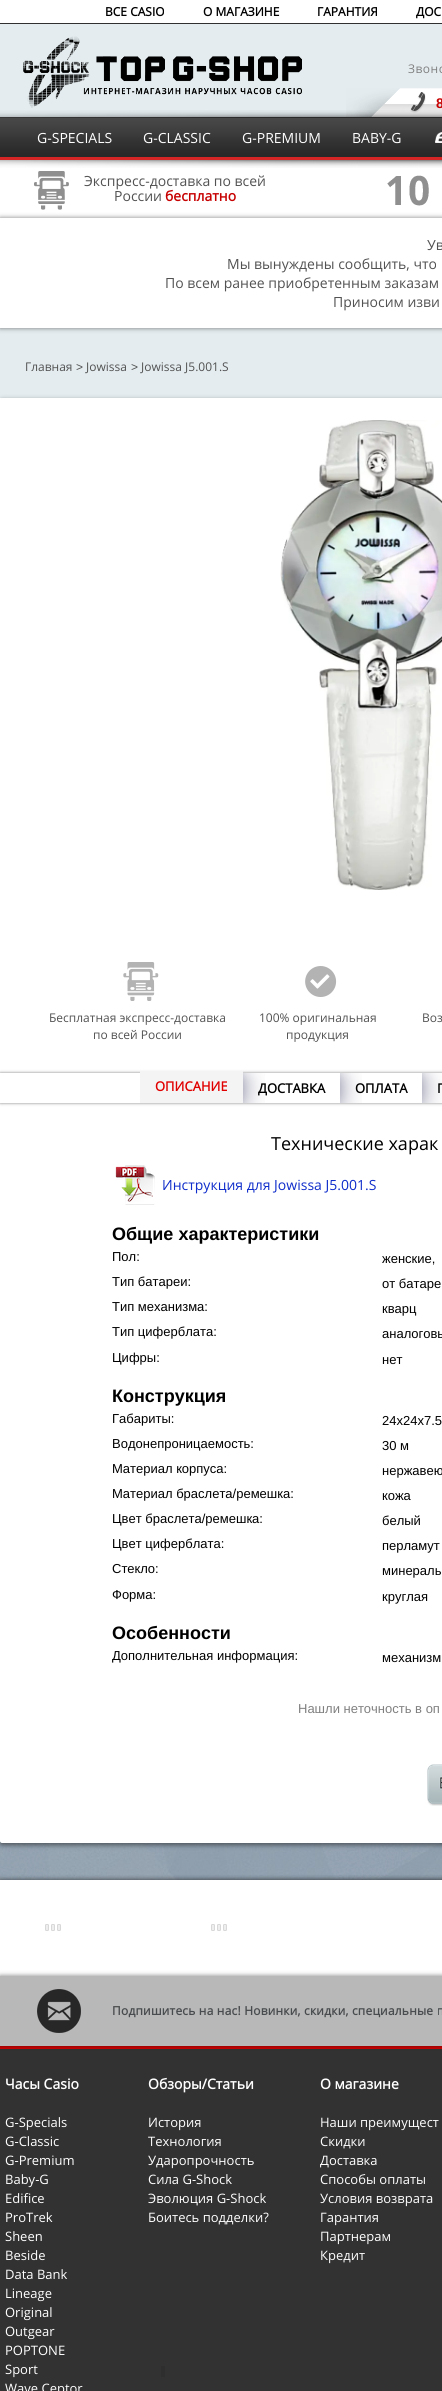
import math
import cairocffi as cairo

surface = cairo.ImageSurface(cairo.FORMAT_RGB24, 442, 2391)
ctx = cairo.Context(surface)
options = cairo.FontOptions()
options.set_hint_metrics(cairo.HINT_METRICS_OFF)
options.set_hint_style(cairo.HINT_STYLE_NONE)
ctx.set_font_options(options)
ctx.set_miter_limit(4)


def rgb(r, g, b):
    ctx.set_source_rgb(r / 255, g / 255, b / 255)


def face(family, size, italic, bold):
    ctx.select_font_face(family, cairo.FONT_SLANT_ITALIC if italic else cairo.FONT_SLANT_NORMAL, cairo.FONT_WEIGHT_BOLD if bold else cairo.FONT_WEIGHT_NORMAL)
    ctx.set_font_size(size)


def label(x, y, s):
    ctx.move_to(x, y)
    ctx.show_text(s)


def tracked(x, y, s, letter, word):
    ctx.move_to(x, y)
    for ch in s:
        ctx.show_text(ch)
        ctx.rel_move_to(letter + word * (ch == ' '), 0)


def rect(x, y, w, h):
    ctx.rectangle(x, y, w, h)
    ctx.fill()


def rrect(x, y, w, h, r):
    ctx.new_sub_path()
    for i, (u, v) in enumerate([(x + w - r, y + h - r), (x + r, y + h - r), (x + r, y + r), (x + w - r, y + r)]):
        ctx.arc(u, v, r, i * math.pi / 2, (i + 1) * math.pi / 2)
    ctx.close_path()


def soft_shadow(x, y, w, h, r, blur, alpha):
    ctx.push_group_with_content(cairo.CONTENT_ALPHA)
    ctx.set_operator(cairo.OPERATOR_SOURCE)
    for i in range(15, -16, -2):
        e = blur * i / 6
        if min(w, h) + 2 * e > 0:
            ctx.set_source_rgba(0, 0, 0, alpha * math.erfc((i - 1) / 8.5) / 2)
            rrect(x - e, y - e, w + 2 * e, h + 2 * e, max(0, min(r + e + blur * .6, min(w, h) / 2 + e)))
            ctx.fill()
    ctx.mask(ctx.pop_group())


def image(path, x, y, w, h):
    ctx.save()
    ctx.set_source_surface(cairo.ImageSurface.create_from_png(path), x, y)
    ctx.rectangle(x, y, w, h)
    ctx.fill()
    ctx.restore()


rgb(255, 255, 255)
ctx.paint()
image('image0.png', 0, 1841, 442, 39)
rgb(48, 48, 48)
rect(0, 23, 442, 1)
face('Open Sans', 12, 0, 1)
rgb(0, 0, 0)
label(105, 16, 'ВСЕ CASIO')
label(203, 16, 'О МАГАЗИНЕ')
label(317, 16, 'ГАРАНТИЯ')
label(416, 16, 'ДОС')
rgb(228, 236, 239)
rect(0, 24, 442, 93)
image('image1.png', 23, 36, 279, 72)
face('Open Sans', 12, 0, 0)
rgb(128, 128, 128)
tracked(408, 73, 'Звоно', 0.5, 0)
image('image2.png', 346, 88, 96, 29)
face('Liberation Sans', 14, 0, 1)
rgb(199, 1, 1)
label(436, 108, '8')
image('image5.png', 0, 117, 442, 43)
image('image3.png', 0, 110, 442, 8)
image('image4.png', 0, 160, 442, 8)
face('Open Sans', 14, 0, 0)
rgb(255, 255, 255)
label(37, 143, 'G-SPECIALS')
label(143, 143, 'G-CLASSIC')
label(242, 143, 'G-PREMIUM')
label(352, 143, 'BABY-G')
image('image6.png', 435, 132, 7, 11)
image('image7.png', 34, 171, 35, 39)
rgb(82, 82, 82)
label(84, 186, 'Экспресс-доставка по всей')
label(114, 201, 'России')
face('Open Sans', 14, 0, 1)
rgb(199, 1, 1)
label(165, 201, 'бесплатно')
image('image8.png', 387, 175, 42, 31)
rgb(228, 236, 239)
rect(0, 328, 442, 70)
rgb(0, 0, 0)
soft_shadow(0, 218, 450, 110, 0, 2.5, 0.5)
rgb(255, 255, 255)
rect(0, 218, 442, 110)
face('Open Sans', 14, 0, 0)
rgb(82, 82, 82)
label(427, 250, 'Ув')
label(227, 269, 'Мы вынуждены сообщить, что')
label(165, 288, 'По всем ранее приобретенным заказам')
label(333, 307, 'Приносим изви')
face('Open Sans', 12, 0, 0)
label(25, 371, 'Главная')
face('Liberation Sans', 12, 0, 0)
label(76, 371, '>')
face('Open Sans', 12, 0, 0)
label(86, 371, 'Jowissa')
face('Liberation Sans', 12, 0, 0)
label(131, 371, '>')
face('Open Sans', 12, 0, 0)
label(141, 371, 'Jowissa J5.001.S')
rgb(0, 0, 0)
soft_shadow(0, 400, 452, 1445, 2, 2.5, 0.5)
rgb(255, 255, 255)
rrect(0, 398, 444, 1445, 2)
ctx.fill()
rect(0, 398, 1, 2)
image('image9.png', 280, 420, 162, 470)
image('image10.png', 123, 962, 36, 39)
rgb(82, 82, 82)
label(49, 1022, 'Бесплатная экспресс-доставка')
label(93, 1039, 'по всей России')
image('image11.png', 305, 966, 32, 31)
label(259, 1022, '100% оригинальная')
label(286, 1039, 'продукция')
label(422, 1022, 'Воз')
ctx.save()
ctx.set_fill_rule(cairo.FILL_RULE_EVEN_ODD)
ctx.new_path()
ctx.move_to(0, 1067)
ctx.line_to(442, 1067)
ctx.line_to(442, 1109)
ctx.line_to(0, 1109)
ctx.close_path()
ctx.move_to(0, 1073)
ctx.line_to(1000, 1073)
ctx.line_to(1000, 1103)
ctx.line_to(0, 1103)
ctx.close_path()
ctx.clip()
rgb(0, 0, 0)
soft_shadow(0, 1073, 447, 30, 0, 1.5, 0.5)
ctx.restore()
rgb(244, 244, 244)
rect(140, 1071, 103, 32)
face('Open Sans', 13, 0, 1)
rgb(225, 0, 0)
label(155, 1091, 'ОПИСАНИЕ')
image('image12.png', 243, 1073, 22, 30)
rgb(0, 0, 0)
label(258, 1093, 'ДОСТАВКА')
image('image12.png', 340, 1073, 22, 30)
label(355, 1093, 'ОПЛАТА')
image('image13.png', 422, 1073, 20, 30)
label(437, 1093, 'Г')
face('Open Sans', 18, 0, 0)
label(271, 1150, 'Технические харак')
image('image14.png', 115, 1165, 40, 40)
face('Open Sans', 14, 0, 0)
rgb(15, 45, 202)
label(162, 1190, 'Инструкция для Jowissa J5.001.S')
face('Liberation Sans', 18, 0, 1)
rgb(0, 0, 0)
label(112, 1240, 'Общие характеристики')
face('Liberation Sans', 13, 0, 0)
label(112, 1261, 'Пол:')
label(382, 1263, 'женские,')
label(112, 1286, 'Тип батареи:')
label(382, 1288, 'от батаре')
label(112, 1311, 'Тип механизма:')
label(382, 1313, 'кварц')
label(112, 1336, 'Тип циферблата:')
label(382, 1338, 'аналоговы')
label(112, 1362, 'Цифры:')
label(382, 1364, 'нет')
face('Liberation Sans', 18, 0, 1)
label(112, 1402, 'Конструкция')
face('Liberation Sans', 13, 0, 0)
label(112, 1423, 'Габариты:')
label(382, 1425, '24x24x7.5')
label(112, 1448, 'Водонепроницаемость:')
label(382, 1450, '30 м')
label(112, 1473, 'Материал корпуса:')
label(382, 1475, 'нержавею')
label(112, 1498, 'Материал браслета/ремешка:')
label(382, 1500, 'кожа')
label(112, 1523, 'Цвет браслета/ремешка:')
label(382, 1525, 'белый')
label(112, 1548, 'Цвет циферблата:')
label(382, 1550, 'перламут')
label(112, 1573, 'Стекло:')
label(382, 1575, 'минераль')
label(112, 1599, 'Форма:')
label(382, 1601, 'круглая')
face('Liberation Sans', 18, 0, 1)
label(112, 1639, 'Особенности')
face('Liberation Sans', 13, 0, 0)
label(112, 1660, 'Дополнительная информация:')
label(382, 1662, 'механизм')
rgb(128, 128, 128)
label(298, 1713, 'Нашли неточность в оп')
image('image15.png', 427, 1764, 15, 42)
rgb(0, 0, 0)
soft_shadow(0, 1880, 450, 101, 0, 2.5, 0.5)
rgb(255, 255, 255)
rect(0, 1880, 442, 96)
image('image16.png', 0, 1875, 442, 5)
image('image17.png', 45, 1924, 16, 7)
image('image17.png', 211, 1924, 16, 7)
rgb(50, 50, 50)
rect(0, 2049, 442, 342)
rgb(211, 2, 2)
rect(0, 2046, 442, 3)
rgb(0, 0, 0)
soft_shadow(0, 1976, 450, 70, 0, 2.5, 0.5)
rgb(184, 184, 184)
rect(0, 1976, 442, 70)
image('image18.png', 37, 1989, 44, 44)
face('Open Sans', 12, 0, 1)
rgb(73, 76, 78)
tracked(112, 2015, 'Подпишитесь на нас! Новинки, скидки, специальные п', 0.2, 0)
face('Open Sans', 14, 0, 1)
rgb(255, 255, 255)
label(5, 2089, 'Часы Casio')
face('Open Sans', 13, 0, 0)
label(5, 2127, 'G-Specials')
label(5, 2146, 'G-Classic')
label(5, 2165, 'G-Premium')
label(5, 2184, 'Baby-G')
label(5, 2203, 'Edifice')
label(5, 2222, 'ProTrek')
label(5, 2241, 'Sheen')
label(5, 2260, 'Beside')
label(5, 2279, 'Data Bank')
label(5, 2298, 'Lineage')
label(5, 2317, 'Original')
label(5, 2336, 'Outgear')
label(5, 2355, 'POPTONE')
label(5, 2374, 'Sport')
label(5, 2393, 'Wave Ceptor')
face('Open Sans', 14, 0, 1)
label(148, 2089, 'Обзоры/Статьи')
face('Open Sans', 13, 0, 0)
label(148, 2127, 'История')
label(148, 2146, 'Технология')
label(148, 2165, 'Ударопрочность')
label(148, 2184, 'Сила G-Shock')
label(148, 2203, 'Эволюция G-Shock')
label(148, 2222, 'Боитесь подделки?')
face('Open Sans', 14, 0, 1)
label(320, 2089, 'О магазине')
face('Open Sans', 13, 0, 0)
label(320, 2127, 'Наши преимущест')
label(320, 2146, 'Скидки')
label(320, 2165, 'Доставка')
label(320, 2184, 'Способы оплаты')
label(320, 2203, 'Условия возврата')
label(320, 2222, 'Гарантия')
label(320, 2241, 'Партнерам')
label(320, 2260, 'Кредит')
rgb(46, 46, 46)
rect(161, 2366, 4, 11)
surface.write_to_png('render.png')
